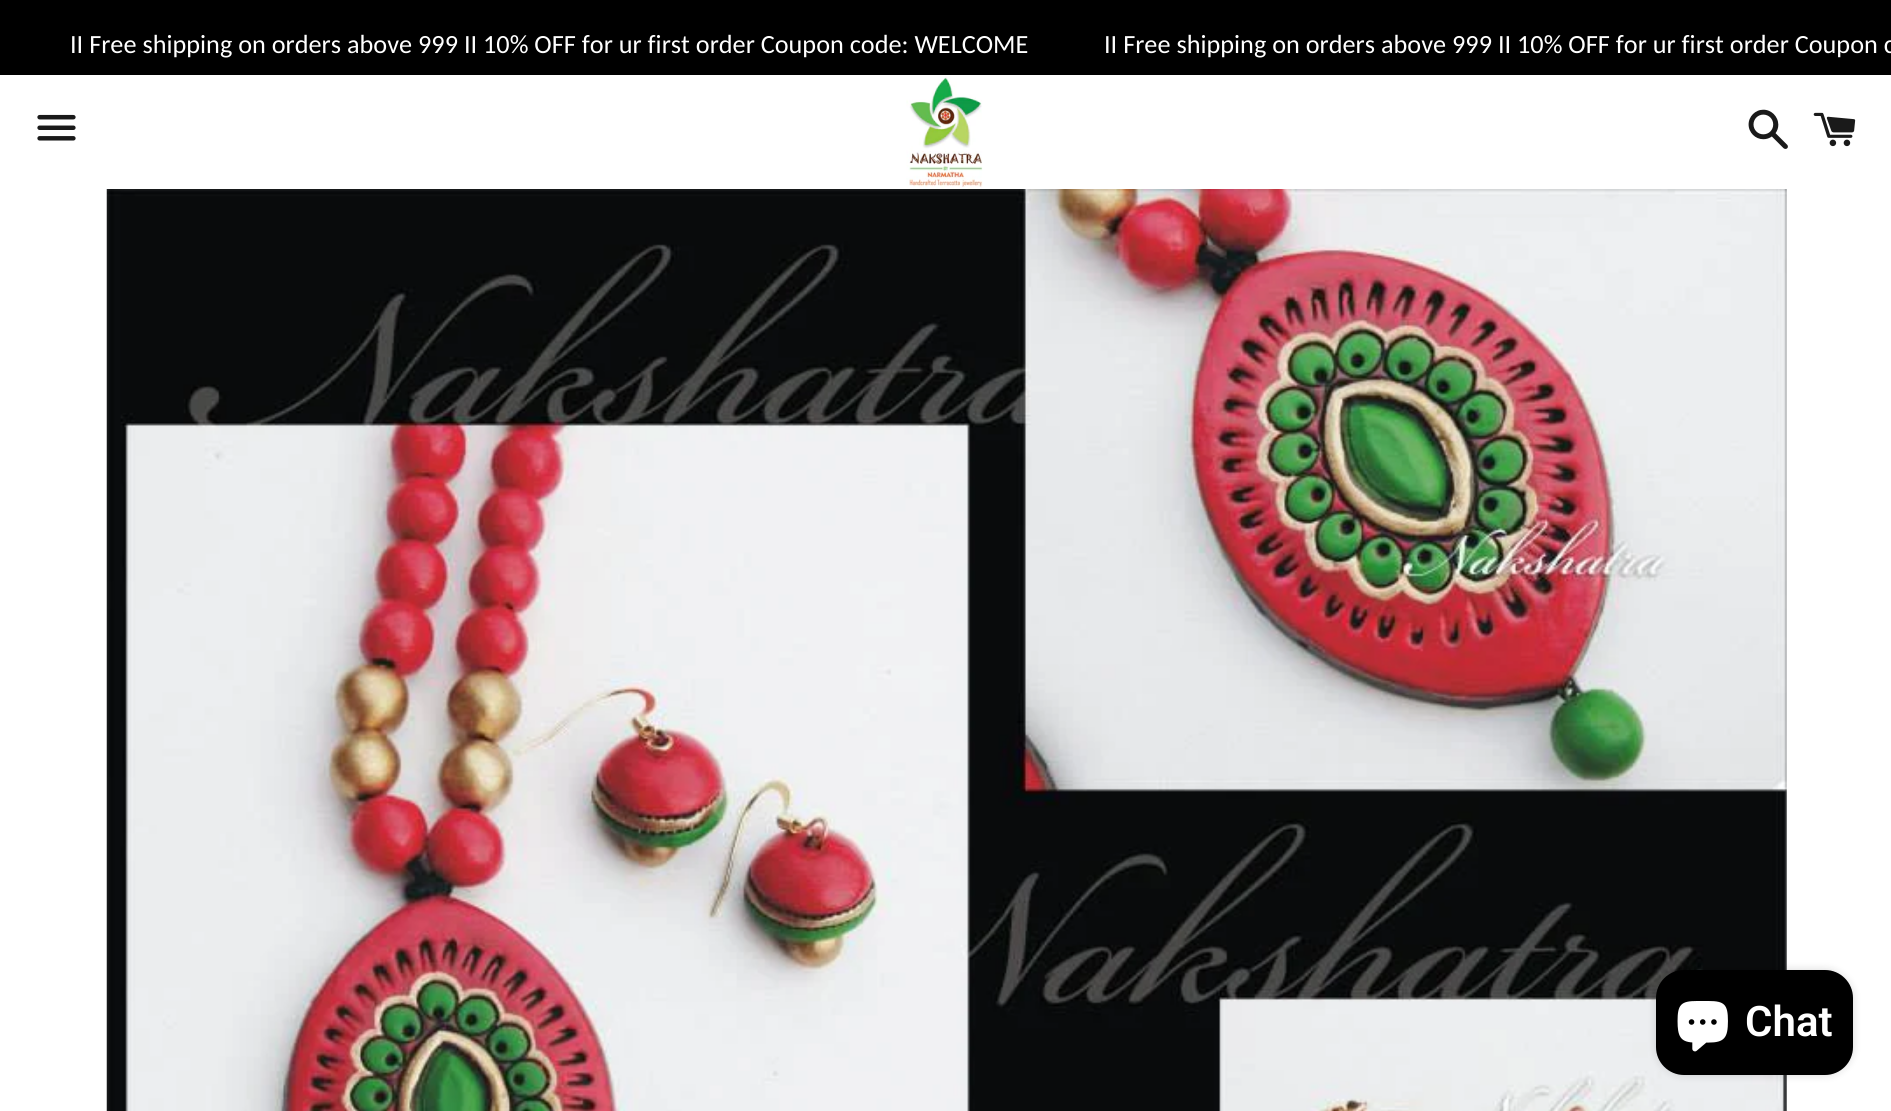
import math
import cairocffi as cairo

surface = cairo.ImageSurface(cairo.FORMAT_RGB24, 1891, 1111)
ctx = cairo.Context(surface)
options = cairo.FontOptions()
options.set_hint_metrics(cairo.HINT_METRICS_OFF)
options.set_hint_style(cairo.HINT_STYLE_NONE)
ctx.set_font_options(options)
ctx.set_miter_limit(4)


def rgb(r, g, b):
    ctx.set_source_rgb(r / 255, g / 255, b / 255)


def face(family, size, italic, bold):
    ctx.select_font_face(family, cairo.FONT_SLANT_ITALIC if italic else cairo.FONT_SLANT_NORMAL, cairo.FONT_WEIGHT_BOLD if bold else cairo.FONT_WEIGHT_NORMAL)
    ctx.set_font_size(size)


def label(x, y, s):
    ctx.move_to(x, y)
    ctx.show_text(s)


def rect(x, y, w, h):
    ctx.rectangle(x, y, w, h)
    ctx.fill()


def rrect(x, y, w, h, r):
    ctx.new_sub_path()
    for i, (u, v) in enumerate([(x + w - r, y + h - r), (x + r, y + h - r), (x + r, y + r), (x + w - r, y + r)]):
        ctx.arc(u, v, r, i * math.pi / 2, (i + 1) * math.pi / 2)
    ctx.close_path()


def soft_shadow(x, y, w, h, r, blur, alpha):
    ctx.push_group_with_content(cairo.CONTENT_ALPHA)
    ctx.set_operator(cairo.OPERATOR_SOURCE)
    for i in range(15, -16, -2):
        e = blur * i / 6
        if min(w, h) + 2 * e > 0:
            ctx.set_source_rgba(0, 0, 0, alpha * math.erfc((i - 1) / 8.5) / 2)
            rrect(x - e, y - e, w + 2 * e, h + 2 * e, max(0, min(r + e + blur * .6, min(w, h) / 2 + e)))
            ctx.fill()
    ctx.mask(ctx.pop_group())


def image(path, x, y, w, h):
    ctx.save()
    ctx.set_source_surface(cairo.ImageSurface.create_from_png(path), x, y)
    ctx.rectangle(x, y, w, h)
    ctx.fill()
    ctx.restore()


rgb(255, 255, 255)
ctx.paint()
rgb(0, 0, 0)
rect(0, 0, 1891, 75)
face('Carlito', 26.25, 0, 0)
rgb(255, 255, 255)
label(70, 53, 'II Free shipping on orders above 999 II 10% OFF for ur first order Coupon code: WELCOME')
label(1104, 53, 'II Free shipping on orders above 999 II 10% OFF for ur first order Coupon c')
image('image0.png', 37, 114, 39, 27)
image('image1.png', 906, 76, 77, 113)
image('image2.png', 1748, 109, 40, 40)
image('image3.png', 1813, 112, 43, 35)
image('image4.png', 106, 189, 1681, 922)
rgb(0, 0, 0)
soft_shadow(1656, 970, 197, 105, 28, 4.5, 0.15)
rgb(0, 0, 0)
rrect(1656, 970, 197, 105, 28)
ctx.fill()
image('image5.png', 1677, 1001, 51, 51)
face('Roboto SemiBold', 42, 0, 0)
rgb(255, 255, 255)
label(1745, 1036, 'Chat')
surface.write_to_png('render.png')
